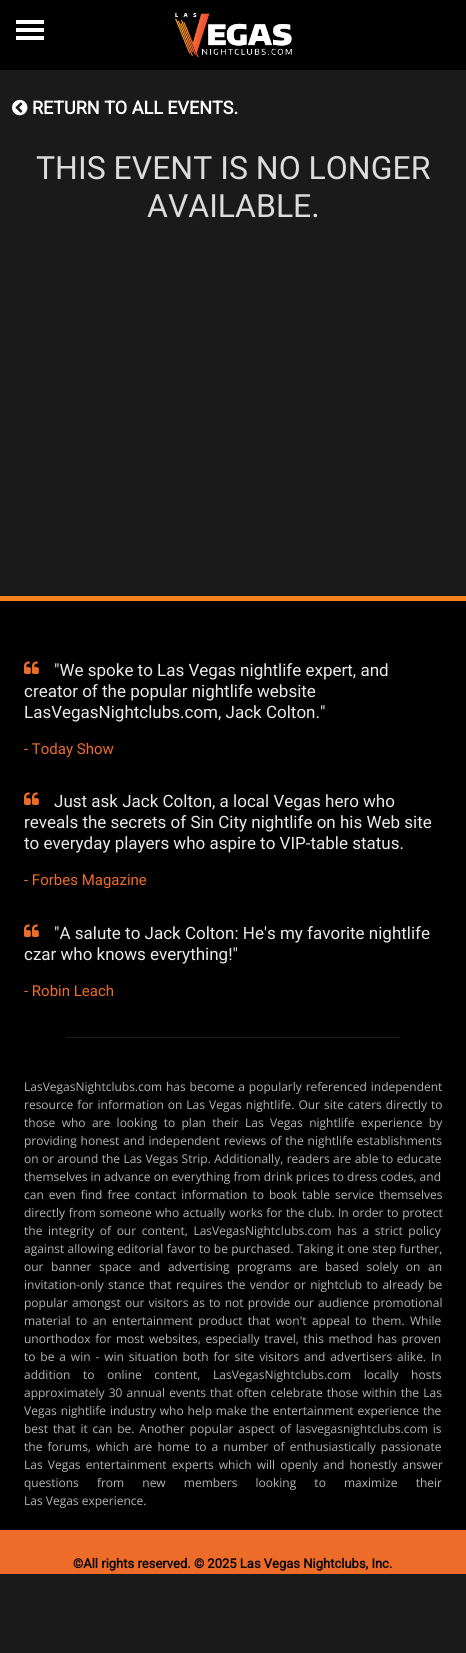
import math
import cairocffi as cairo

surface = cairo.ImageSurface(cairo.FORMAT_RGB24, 466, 1653)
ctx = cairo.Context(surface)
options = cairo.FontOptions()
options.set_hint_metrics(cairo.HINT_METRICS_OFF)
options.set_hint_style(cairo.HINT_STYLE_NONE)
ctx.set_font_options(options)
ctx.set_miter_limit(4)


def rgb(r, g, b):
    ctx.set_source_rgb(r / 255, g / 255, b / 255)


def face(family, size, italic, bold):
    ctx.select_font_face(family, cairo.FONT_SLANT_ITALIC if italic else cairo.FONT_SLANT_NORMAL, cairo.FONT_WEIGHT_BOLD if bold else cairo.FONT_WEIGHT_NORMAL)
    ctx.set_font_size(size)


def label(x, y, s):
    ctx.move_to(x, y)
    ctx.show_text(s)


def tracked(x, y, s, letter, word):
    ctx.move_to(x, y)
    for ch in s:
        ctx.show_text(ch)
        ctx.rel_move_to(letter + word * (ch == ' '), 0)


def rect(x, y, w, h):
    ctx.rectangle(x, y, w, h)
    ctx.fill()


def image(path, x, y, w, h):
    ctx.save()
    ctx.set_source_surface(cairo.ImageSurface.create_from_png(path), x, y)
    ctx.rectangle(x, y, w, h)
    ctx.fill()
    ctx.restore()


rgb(26, 26, 26)
ctx.paint()
rgb(0, 0, 0)
rect(0, 0, 466, 70)
image('image0.png', 175, 12, 117, 46)
rgb(255, 255, 255)
rect(16, 20, 28, 4)
rect(16, 28, 28, 4)
rect(16, 36, 28, 4)
image('image1.png', 12, 99, 16, 17)
face('Roboto', 18, 0, 1)
label(32, 114, 'RETURN TO ALL EVENTS.')
face('Roboto', 32, 0, 0)
rgb(220, 220, 220)
label(36, 179, 'THIS EVENT IS NO LONGER')
label(147, 217, 'AVAILABLE.')
rgb(0, 0, 0)
rect(0, 601, 466, 929)
rgb(245, 130, 32)
rect(0, 596, 466, 5)
image('image2.png', 24, 661, 15, 13)
face('Roboto', 17, 0, 0)
rgb(234, 234, 234)
label(54, 676, '"We spoke to Las Vegas nightlife expert, and')
label(24, 697, 'creator of the popular nightlife website')
label(24, 718, 'LasVegasNightclubs.com, Jack Colton."')
face('Roboto', 15, 0, 0)
rgb(237, 108, 42)
label(24, 754, '- Today Show')
image('image2.png', 24, 792, 15, 13)
face('Roboto', 17, 0, 0)
rgb(234, 234, 234)
label(54, 807, 'Just ask Jack Colton, a local Vegas hero who')
label(24, 828, 'reveals the secrets of Sin City nightlife on his Web site')
label(24, 849, 'to everyday players who aspire to VIP-table status.')
face('Roboto', 15, 0, 0)
rgb(237, 108, 42)
label(24, 885, '- Forbes Magazine')
image('image2.png', 24, 924, 15, 13)
face('Roboto', 17, 0, 0)
rgb(234, 234, 234)
label(54, 939, '"A salute to Jack Colton: He\'s my favorite nightlife')
label(24, 960, 'czar who knows everything!"')
face('Roboto', 15, 0, 0)
rgb(237, 108, 42)
label(24, 996, '- Robin Leach')
rgb(26, 26, 26)
rect(66, 1037, 334, 1)
face('Open Sans', 12, 0, 0)
rgb(180, 180, 180)
tracked(24, 1091, 'LasVegasNightclubs.com has become a popularly referenced independent', 0, 0.75)
tracked(24, 1109, 'resource for information on Las Vegas nightlife. Our site caters directly to', 0, 0.9)
tracked(24, 1127, 'those who are looking to plan their Las Vegas nightlife experience by', 0, 3.25)
tracked(24, 1145, 'providing honest and independent reviews of the nightlife establishments', 0, 0.75)
tracked(24, 1163, 'on or around the Las Vegas Strip. Additionally, readers are able to educate', 0, 0.25)
label(24, 1181, 'themselves in advance on everything from drink prices to dress codes, and')
tracked(24, 1199, 'can even find free contact information to book table service themselves', 0, 1.9)
tracked(24, 1217, 'directly from someone who actually works for the club.', 0, 0.5)
tracked(338, 1217, 'In order to protect', 0, 0.5)
tracked(24, 1235, 'the integrity of our content, LasVegasNightclubs.com has a strict policy', 0, 2.5)
tracked(24, 1253, 'against allowing editorial favor to be purchased. Taking it one step further,', 0, 0.25)
tracked(24, 1271, 'our banner space and advertising programs are based solely on an', 0, 4.5)
tracked(24, 1289, 'invitation-only stance that requires the vendor or nightclub to already be', 0, 1.25)
tracked(24, 1307, 'popular amongst our visitors as to not provide our audience promotional', 0, 1)
tracked(24, 1325, 'material to an entertainment product that won\'t appeal to them. While', 0, 2.25)
tracked(24, 1343, 'unorthodox for most websites, especially travel, this method has proven', 0, 1.5)
tracked(24, 1361, 'to be a win - win situation both for site visitors and advertisers alike.', 0, 1.75)
label(431, 1361, 'In')
tracked(24, 1379, 'addition to online content, LasVegasNightclubs.com locally hosts', 0, 9.5)
tracked(24, 1397, 'approximately 30 annual events that often celebrate those within the Las', 0, 1)
tracked(24, 1415, 'Vegas nightlife industry who help make the entertainment experience the', 0, 0.75)
tracked(24, 1433, 'best that it can be. Another popular aspect of lasvegasnightclubs.com is', 0, 1.75)
tracked(24, 1451, 'the forums, which are home to a number of enthusiastically passionate', 0, 2)
tracked(24, 1469, 'Las Vegas entertainment experts which will openly and honestly answer', 0, 2)
tracked(24, 1487, 'questions from new members looking to maximize their', 0, 15)
label(24, 1505, 'Las Vegas experience.')
rgb(238, 108, 42)
rect(0, 1530, 466, 44)
face('Roboto', 13, 0, 1)
rgb(0, 0, 0)
label(73, 1568, '©All rights reserved. © 2025 Las Vegas Nightclubs, Inc.')
surface.write_to_png('render.png')
